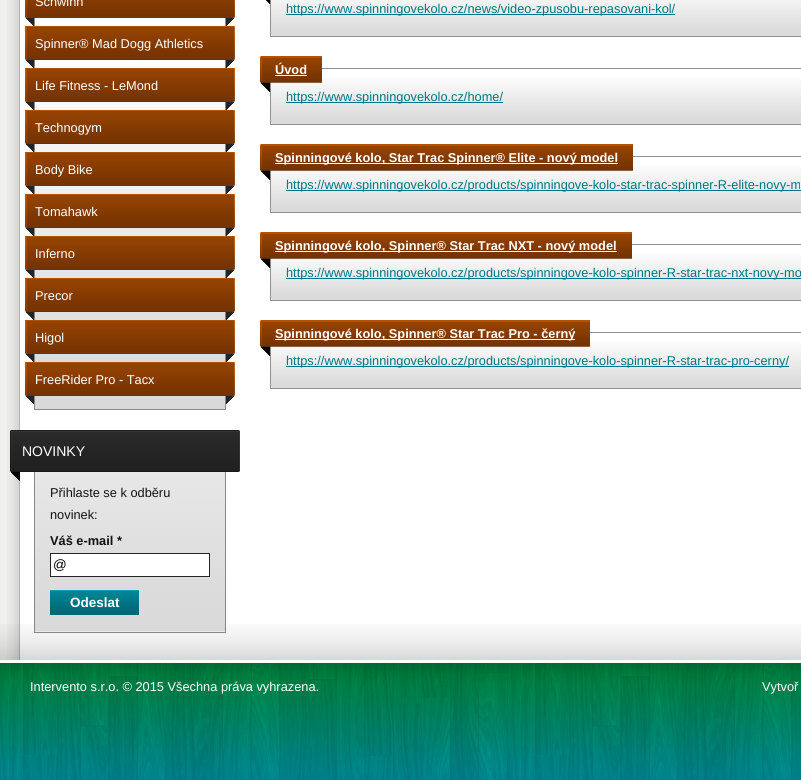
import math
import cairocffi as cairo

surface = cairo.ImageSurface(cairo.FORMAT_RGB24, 801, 780)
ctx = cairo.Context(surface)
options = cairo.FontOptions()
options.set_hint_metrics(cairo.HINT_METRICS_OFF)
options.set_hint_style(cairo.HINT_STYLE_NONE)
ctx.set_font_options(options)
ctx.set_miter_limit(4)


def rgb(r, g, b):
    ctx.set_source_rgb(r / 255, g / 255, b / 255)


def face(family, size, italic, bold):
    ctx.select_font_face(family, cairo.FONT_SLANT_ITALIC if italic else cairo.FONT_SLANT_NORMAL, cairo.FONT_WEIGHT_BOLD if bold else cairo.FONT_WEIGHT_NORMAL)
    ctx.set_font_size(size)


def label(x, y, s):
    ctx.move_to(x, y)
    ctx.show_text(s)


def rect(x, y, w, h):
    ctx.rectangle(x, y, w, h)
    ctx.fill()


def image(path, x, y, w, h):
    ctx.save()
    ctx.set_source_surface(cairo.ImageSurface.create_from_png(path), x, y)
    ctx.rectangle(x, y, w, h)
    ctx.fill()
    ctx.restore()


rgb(240, 240, 238)
ctx.paint()
image('image0.png', 7, 0, 794, 660)
image('image1.png', 0, 624, 801, 156)
image('image2.png', 35, 102, 190, 307)
rgb(135, 135, 135)
rect(225, 18, 1, 392)
rect(34, 409, 192, 1)
rect(34, 18, 1, 392)
image('image3.png', 25, 0, 210, 26)
face('Liberation Sans', 12.8, 0, 0)
rgb(255, 255, 255)
label(35, 6, 'Schwinn')
image('image4.png', 25, 26, 210, 42)
label(35, 48, 'Spinner® Mad Dogg Athletics')
image('image5.png', 25, 68, 210, 42)
label(35, 90, 'Life Fitness - LeMond')
image('image6.png', 25, 110, 210, 42)
label(35, 132, 'Technogym')
image('image7.png', 25, 152, 210, 42)
label(35, 174, 'Body Bike')
image('image8.png', 25, 194, 210, 42)
label(35, 216, 'Tomahawk')
image('image9.png', 25, 236, 210, 42)
label(35, 258, 'Inferno')
image('image10.png', 25, 278, 210, 42)
label(35, 300, 'Precor')
image('image11.png', 25, 320, 210, 42)
label(35, 342, 'Higol')
image('image12.png', 25, 362, 210, 42)
label(35, 384, 'FreeRider Pro - Tacx')
image('image13.png', 10, 430, 230, 51)
face('Liberation Sans', 14, 0, 0)
label(22, 456, 'NOVINKY')
image('image14.png', 35, 472, 190, 160)
rgb(135, 135, 135)
rect(225, 472, 1, 161)
rect(34, 632, 192, 1)
rect(34, 472, 1, 161)
face('Liberation Sans', 12.8, 0, 0)
rgb(18, 18, 18)
label(50, 497, 'Přihlaste se k odběru')
label(50, 519, 'novinek:')
face('Liberation Sans', 12.8, 0, 1)
label(50, 545, 'Váš e-mail *')
rgb(255, 255, 255)
ctx.rectangle(50.5, 553.5, 159, 23)
ctx.fill_preserve()
rgb(37, 37, 37)
ctx.set_line_width(1)
ctx.stroke()
face('Liberation Sans', 13.5, 0, 0)
rgb(0, 0, 0)
label(53, 569, '@')
image('image15.png', 50, 590, 89, 25)
face('Liberation Sans', 13.5, 0, 1)
rgb(255, 255, 255)
label(70, 607, 'Odeslat')
image('image17.png', 271, 0, 530, 36)
ctx.rectangle(270.5, -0.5, 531, 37)
rgb(146, 146, 146)
ctx.stroke()
image('image16.png', 266, 0, 5, 4)
rgb(0, 118, 133)
rect(286, 14, 389, 1)
face('Liberation Sans', 12.8, 0, 0)
label(286, 13, 'https://www.spinningovekolo.cz/news/video-zpusobu-repasovani-kol/')
image('image19.png', 271, 78, 530, 46)
ctx.rectangle(270.5, 68.5, 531, 56)
rgb(146, 146, 146)
ctx.stroke()
rgb(0, 118, 133)
rect(286, 102, 217, 1)
label(286, 101, 'https://www.spinningovekolo.cz/home/')
image('image18.png', 260, 56, 62, 36)
face('Liberation Sans', 12.8, 0, 1)
rgb(255, 255, 255)
label(275, 74, 'Úvod')
rect(275, 75, 32, 1)
image('image19.png', 271, 166, 530, 46)
ctx.rectangle(270.5, 156.5, 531, 56)
rgb(146, 146, 146)
ctx.stroke()
rgb(0, 118, 133)
rect(286, 190, 515, 1)
face('Liberation Sans', 12.8, 0, 0)
label(286, 189, 'https://www.spinningovekolo.cz/products/spinningove-kolo-star-trac-spinner-R-elite-novy-m')
image('image20.png', 260, 144, 373, 36)
rgb(255, 255, 255)
rect(275, 163, 343, 1)
face('Liberation Sans', 12.8, 0, 1)
label(275, 162, 'Spinningové kolo, Star Trac Spinner® Elite - nový model')
image('image19.png', 271, 254, 530, 46)
ctx.rectangle(270.5, 244.5, 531, 56)
rgb(146, 146, 146)
ctx.stroke()
rgb(0, 118, 133)
rect(286, 278, 515, 1)
face('Liberation Sans', 12.8, 0, 0)
label(286, 277, 'https://www.spinningovekolo.cz/products/spinningove-kolo-spinner-R-star-trac-nxt-novy-mo')
image('image21.png', 260, 232, 372, 36)
rgb(255, 255, 255)
rect(275, 251, 342, 1)
face('Liberation Sans', 12.8, 0, 1)
label(275, 250, 'Spinningové kolo, Spinner® Star Trac NXT - nový model')
image('image19.png', 271, 342, 530, 46)
ctx.rectangle(270.5, 332.5, 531, 56)
rgb(146, 146, 146)
ctx.stroke()
rgb(0, 118, 133)
rect(286, 366, 503, 1)
face('Liberation Sans', 12.8, 0, 0)
label(286, 365, 'https://www.spinningovekolo.cz/products/spinningove-kolo-spinner-R-star-trac-pro-cerny/')
image('image22.png', 260, 320, 330, 36)
rgb(255, 255, 255)
rect(275, 339, 300, 1)
face('Liberation Sans', 12.8, 0, 1)
label(275, 338, 'Spinningové kolo, Spinner® Star Trac Pro - černý')
face('Liberation Sans', 12.8, 0, 0)
label(30, 691, 'Intervento s.r.o. © 2015 Všechna práva vyhrazena.')
label(762, 691, 'Vytvoř')
surface.write_to_png('render.png')
